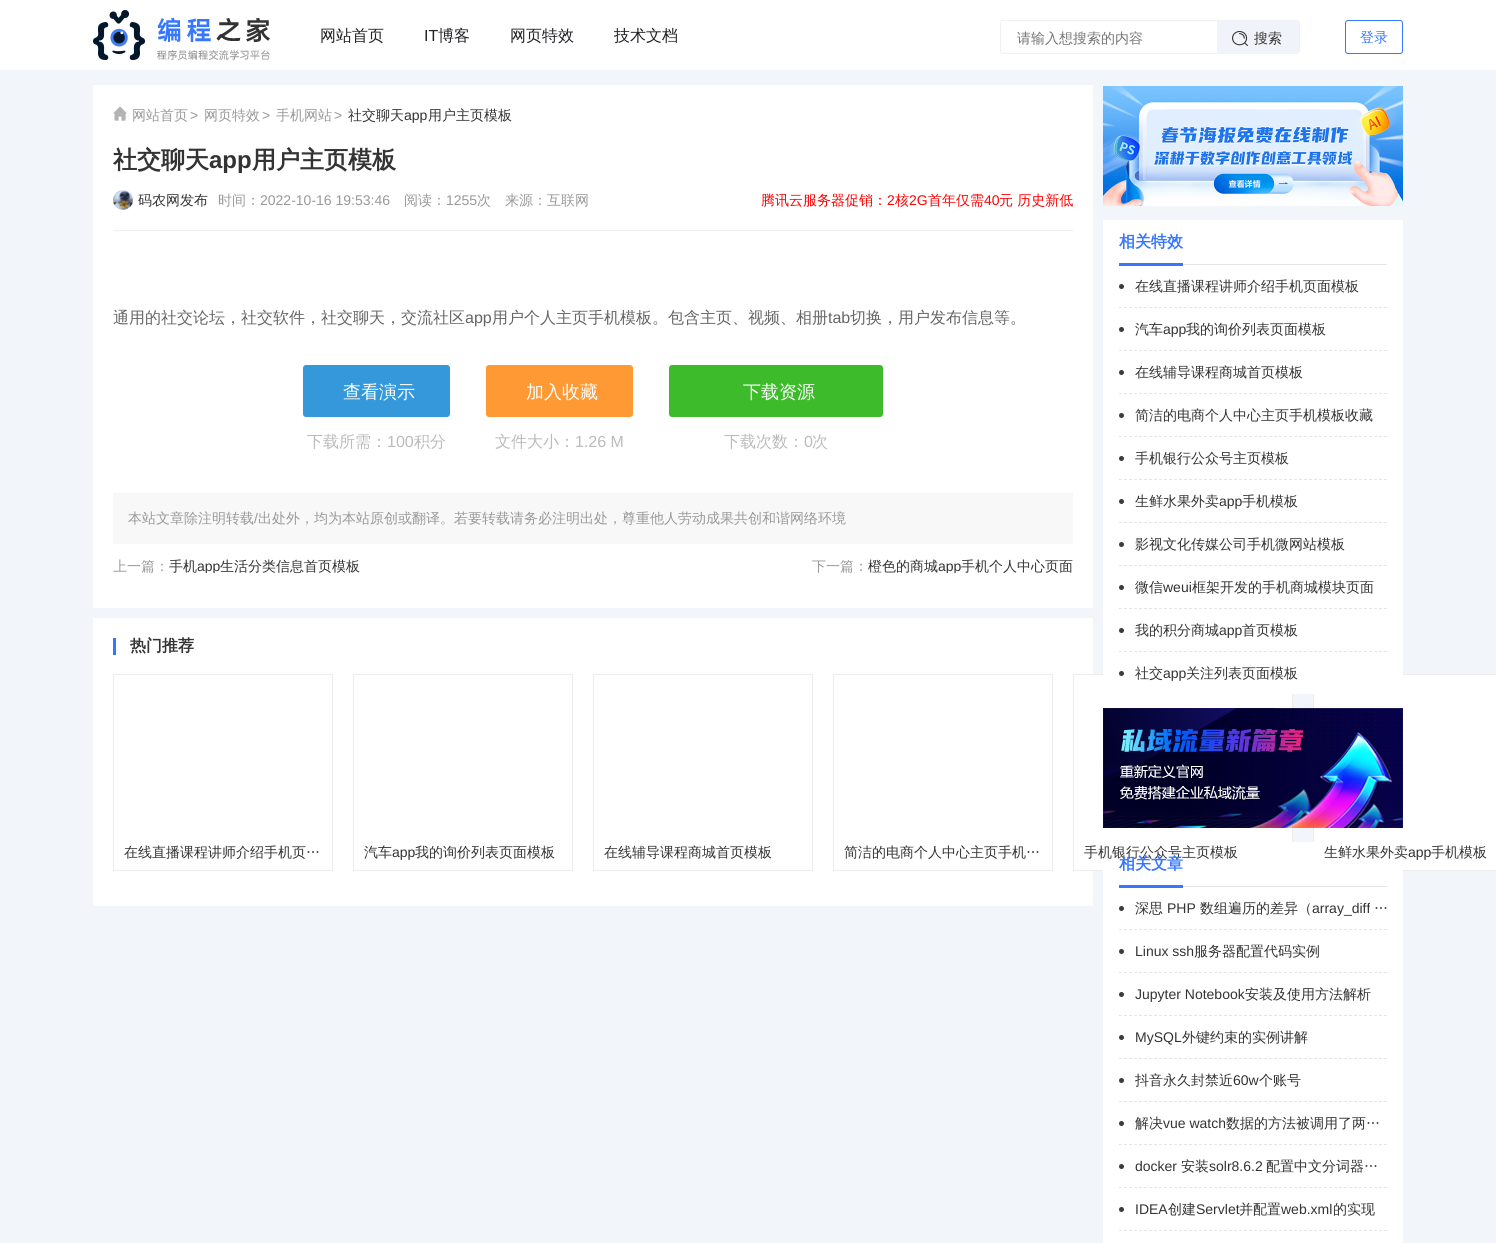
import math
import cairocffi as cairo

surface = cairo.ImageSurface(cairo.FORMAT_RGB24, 1496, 1243)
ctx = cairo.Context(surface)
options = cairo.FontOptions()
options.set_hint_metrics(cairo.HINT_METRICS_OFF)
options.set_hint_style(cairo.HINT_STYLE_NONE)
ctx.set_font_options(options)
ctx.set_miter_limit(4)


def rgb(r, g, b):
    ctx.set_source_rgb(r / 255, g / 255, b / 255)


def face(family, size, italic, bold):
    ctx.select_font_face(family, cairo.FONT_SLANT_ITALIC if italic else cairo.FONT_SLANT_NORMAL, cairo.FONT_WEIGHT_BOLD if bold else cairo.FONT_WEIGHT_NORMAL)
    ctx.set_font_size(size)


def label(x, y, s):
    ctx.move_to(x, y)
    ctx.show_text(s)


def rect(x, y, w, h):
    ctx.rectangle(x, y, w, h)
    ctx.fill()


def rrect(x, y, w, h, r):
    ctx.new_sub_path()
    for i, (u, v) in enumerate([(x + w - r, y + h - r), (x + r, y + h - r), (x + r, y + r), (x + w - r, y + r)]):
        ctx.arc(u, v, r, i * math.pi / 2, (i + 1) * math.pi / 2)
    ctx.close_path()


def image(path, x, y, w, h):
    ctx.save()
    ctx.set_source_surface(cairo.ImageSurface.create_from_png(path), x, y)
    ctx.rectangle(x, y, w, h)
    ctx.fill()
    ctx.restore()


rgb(242, 245, 250)
ctx.paint()
rgb(255, 255, 255)
rect(0, 0, 1496, 70)
image('image0.png', 93, 10, 177, 50)
face('WenQuanYi Zen Hei Medium', 16, 0, 0)
rgb(34, 34, 38)
label(320, 41, '网站首页')
face('Liberation Sans', 16, 0, 0)
label(424, 41, 'IT')
face('WenQuanYi Zen Hei Medium', 16, 0, 0)
label(438, 41, '博客')
label(510, 41, '网页特效')
label(614, 41, '技术文档')
rrect(1000.5, 20.5, 299, 33, 2.5)
rgb(240, 241, 245)
ctx.set_line_width(1)
ctx.stroke()
face('WenQuanYi Zen Hei Medium', 14, 0, 0)
rgb(117, 117, 117)
label(1017, 43, '请输入想搜索的内容')
rgb(240, 243, 249)
ctx.new_path()
ctx.move_to(1217, 21)
ctx.line_to(1296, 21)
ctx.curve_to(1297.5, 21, 1299, 22.5, 1299, 24)
ctx.line_to(1299, 51)
ctx.curve_to(1299, 52.5, 1297.5, 54, 1296, 54)
ctx.line_to(1217, 54)
ctx.close_path()
ctx.fill()
image('image1.png', 1232, 31, 16, 15)
rgb(51, 51, 51)
label(1254, 43, '搜索')
rrect(1345.5, 20.5, 57, 33, 2.5)
rgb(54, 119, 255)
ctx.stroke()
label(1360, 42, '登录')
rgb(255, 255, 255)
rect(93, 85, 1000, 523)
rgb(238, 238, 238)
rect(113, 230, 960, 1)
image('image2.png', 113, 106, 14, 15)
rgb(153, 153, 153)
label(132, 120, '网站首页')
face('Liberation Sans', 14, 0, 0)
label(190, 120, '>')
face('WenQuanYi Zen Hei Medium', 14, 0, 0)
label(204, 120, '网页特效')
face('Liberation Sans', 14, 0, 0)
label(262, 120, '>')
face('WenQuanYi Zen Hei Medium', 14, 0, 0)
label(276, 120, '手机网站')
face('Liberation Sans', 14, 0, 0)
label(334, 120, '>')
face('WenQuanYi Zen Hei Medium', 14, 0, 0)
rgb(51, 51, 51)
label(348, 120, '社交聊天')
face('Liberation Sans', 14, 0, 0)
label(404, 120, 'app')
face('WenQuanYi Zen Hei Medium', 14, 0, 0)
label(428, 120, '用户主页模板')
face('WenQuanYi Zen Hei', 24, 0, 1)
label(113, 168, '社交聊天')
face('Liberation Sans', 24, 0, 1)
label(209, 168, 'app')
face('WenQuanYi Zen Hei', 24, 0, 1)
label(252, 168, '用户主页模板')
image('image3.png', 113, 190, 20, 20)
face('WenQuanYi Zen Hei Medium', 14, 0, 0)
label(138, 205, '码农网发布')
rgb(153, 153, 153)
label(218, 205, '时间：')
face('Liberation Sans', 14, 0, 0)
label(260, 205, '2022-10-16 19:53:46')
face('WenQuanYi Zen Hei Medium', 14, 0, 0)
label(404, 205, '阅读：')
face('Liberation Sans', 14, 0, 0)
label(446, 205, '1255')
face('WenQuanYi Zen Hei Medium', 14, 0, 0)
label(477, 205, '次')
label(505, 205, '来源：互联网')
rgb(255, 0, 0)
label(761, 205, '腾讯云服务器促销：')
face('Liberation Sans', 14, 0, 0)
label(887, 205, '2')
face('WenQuanYi Zen Hei Medium', 14, 0, 0)
label(895, 205, '核')
face('Liberation Sans', 14, 0, 0)
label(909, 205, '2G')
face('WenQuanYi Zen Hei Medium', 14, 0, 0)
label(928, 205, '首年仅需')
face('Liberation Sans', 14, 0, 0)
label(984, 205, '40')
face('WenQuanYi Zen Hei Medium', 14, 0, 0)
label(999, 205, '元 历史新低')
face('WenQuanYi Zen Hei Medium', 16, 0, 0)
rgb(102, 102, 102)
label(113, 323, '通用的社交论坛，社交软件，社交聊天，交流社区')
face('Liberation Sans', 16, 0, 0)
label(465, 323, 'app')
face('WenQuanYi Zen Hei Medium', 16, 0, 0)
label(492, 323, '用户个人主页手机模板。包含主页、视频、相册')
face('Liberation Sans', 16, 0, 0)
label(828, 323, 'tab')
face('WenQuanYi Zen Hei Medium', 16, 0, 0)
label(850, 323, '切换，用户发布信息等。')
rgb(52, 152, 219)
rrect(303, 365, 147, 52, 3)
ctx.fill()
face('WenQuanYi Zen Hei Medium', 18, 0, 0)
rgb(255, 255, 255)
label(343, 398, '查看演示')
face('WenQuanYi Zen Hei Medium', 16, 0, 0)
rgb(187, 187, 187)
label(307, 447, '下载所需：')
face('Liberation Sans', 16, 0, 0)
label(387, 447, '100')
face('WenQuanYi Zen Hei Medium', 16, 0, 0)
label(414, 447, '积分')
rgb(255, 153, 51)
rrect(486, 365, 147, 52, 3)
ctx.fill()
face('WenQuanYi Zen Hei Medium', 18, 0, 0)
rgb(255, 255, 255)
label(526, 398, '加入收藏')
face('WenQuanYi Zen Hei Medium', 16, 0, 0)
rgb(187, 187, 187)
label(495, 447, '文件大小：')
face('Liberation Sans', 16, 0, 0)
label(575, 447, '1.26 M')
rgb(61, 187, 43)
rrect(669, 365, 214, 52, 3)
ctx.fill()
face('WenQuanYi Zen Hei Medium', 18, 0, 0)
rgb(255, 255, 255)
label(743, 398, '下载资源')
face('WenQuanYi Zen Hei Medium', 16, 0, 0)
rgb(187, 187, 187)
label(724, 447, '下载次数：')
face('Liberation Sans', 16, 0, 0)
label(804, 447, '0')
face('WenQuanYi Zen Hei Medium', 16, 0, 0)
label(812, 447, '次')
rgb(248, 248, 248)
rect(113, 493, 960, 51)
face('WenQuanYi Zen Hei Medium', 14, 0, 0)
rgb(153, 153, 153)
label(128, 523, '本站文章除注明转载')
face('Liberation Sans', 14, 0, 0)
label(254, 523, '/')
face('WenQuanYi Zen Hei Medium', 14, 0, 0)
label(258, 523, '出处外，均为本站原创或翻译。若要转载请务必注明出处，尊重他人劳动成果共创和谐网络环境')
label(113, 571, '上一篇：')
rgb(51, 51, 51)
label(169, 571, '手机')
ctx.save()
ctx.rectangle(169, 559, 191, 14)
ctx.clip()
face('Liberation Sans', 14, 0, 0)
label(197, 571, 'app')
ctx.restore()
label(220, 571, '生活分类信息首页模板')
rgb(153, 153, 153)
label(812, 571, '下一篇：')
rgb(51, 51, 51)
label(868, 571, '橙色的商城')
ctx.save()
ctx.rectangle(868, 559, 205, 14)
ctx.clip()
face('Liberation Sans', 14, 0, 0)
label(938, 571, 'app')
ctx.restore()
label(961, 571, '手机个人中心页面')
rgb(255, 255, 255)
rect(93, 618, 1000, 288)
rgb(54, 119, 255)
rect(113, 638, 3, 17)
face('WenQuanYi Zen Hei', 16, 0, 1)
rgb(51, 51, 51)
label(130, 651, '热门推荐')
ctx.rectangle(113.5, 674.5, 219, 196)
rgb(236, 236, 236)
ctx.stroke()
face('WenQuanYi Zen Hei Medium', 14, 0, 0)
rgb(51, 51, 51)
label(124, 857, '在线直播课程讲师介绍手机页…')
ctx.rectangle(353.5, 674.5, 219, 196)
rgb(236, 236, 236)
ctx.stroke()
rgb(51, 51, 51)
label(364, 857, '汽车')
face('Liberation Sans', 14, 0, 0)
label(392, 857, 'app')
face('WenQuanYi Zen Hei Medium', 14, 0, 0)
label(415, 857, '我的询价列表页面模板')
ctx.rectangle(593.5, 674.5, 219, 196)
rgb(236, 236, 236)
ctx.stroke()
rgb(51, 51, 51)
label(604, 857, '在线辅导课程商城首页模板')
ctx.rectangle(833.5, 674.5, 219, 196)
rgb(236, 236, 236)
ctx.stroke()
rgb(51, 51, 51)
label(844, 857, '简洁的电商个人中心主页手机…')
rgb(255, 255, 255)
rect(1093, 675, 199, 195)
ctx.rectangle(1073.5, 674.5, 219, 196)
rgb(236, 236, 236)
ctx.stroke()
rgb(255, 255, 255)
ctx.rectangle(1313.5, 674.5, 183, 196)
ctx.fill_preserve()
rgb(236, 236, 236)
ctx.stroke()
rgb(255, 255, 255)
rect(1103, 842, 300, 401)
rgb(51, 51, 51)
label(1084, 857, '手机银行公众号主页模板')
label(1324, 857, '生鲜水果外卖')
face('Liberation Sans', 14, 0, 0)
label(1408, 857, 'app')
face('WenQuanYi Zen Hei Medium', 14, 0, 0)
label(1431, 857, '手机模板')
image('image4.png', 1103, 86, 300, 120)
rgb(255, 255, 255)
rect(1103, 220, 300, 474)
rgb(229, 229, 229)
rect(1183, 264, 204, 1)
face('WenQuanYi Zen Hei', 16, 0, 1)
rgb(54, 119, 255)
label(1119, 247, '相关特效')
rect(1119, 263, 64, 3)
rgb(60, 60, 60)
ctx.new_path()
ctx.arc(1121.5, 286.5, 2.5, 0, 2 * math.pi)
ctx.fill()
face('WenQuanYi Zen Hei Medium', 14, 0, 0)
rgb(51, 51, 51)
label(1135, 291, '在线直播课程讲师介绍手机页面模板')
ctx.new_path()
ctx.move_to(1119, 307.5)
ctx.line_to(1387, 307.5)
rgb(229, 229, 229)
ctx.set_dash([3, 2])
ctx.stroke()
rgb(60, 60, 60)
ctx.arc(1121.5, 329.5, 2.5, 0, 2 * math.pi)
ctx.fill()
rgb(51, 51, 51)
label(1135, 334, '汽车')
face('Liberation Sans', 14, 0, 0)
label(1163, 334, 'app')
face('WenQuanYi Zen Hei Medium', 14, 0, 0)
label(1186, 334, '我的询价列表页面模板')
ctx.new_path()
ctx.move_to(1119, 350.5)
ctx.line_to(1387, 350.5)
rgb(229, 229, 229)
ctx.stroke()
rgb(60, 60, 60)
ctx.arc(1121.5, 372.5, 2.5, 0, 2 * math.pi)
ctx.fill()
rgb(51, 51, 51)
label(1135, 377, '在线辅导课程商城首页模板')
ctx.new_path()
ctx.move_to(1119, 393.5)
ctx.line_to(1387, 393.5)
rgb(229, 229, 229)
ctx.stroke()
rgb(60, 60, 60)
ctx.arc(1121.5, 415.5, 2.5, 0, 2 * math.pi)
ctx.fill()
rgb(51, 51, 51)
label(1135, 420, '简洁的电商个人中心主页手机模板收藏')
ctx.new_path()
ctx.move_to(1119, 436.5)
ctx.line_to(1387, 436.5)
rgb(229, 229, 229)
ctx.stroke()
rgb(60, 60, 60)
ctx.arc(1121.5, 458.5, 2.5, 0, 2 * math.pi)
ctx.fill()
rgb(51, 51, 51)
label(1135, 463, '手机银行公众号主页模板')
ctx.new_path()
ctx.move_to(1119, 479.5)
ctx.line_to(1387, 479.5)
rgb(229, 229, 229)
ctx.stroke()
rgb(60, 60, 60)
ctx.arc(1121.5, 501.5, 2.5, 0, 2 * math.pi)
ctx.fill()
rgb(51, 51, 51)
label(1135, 506, '生鲜水果外卖')
face('Liberation Sans', 14, 0, 0)
label(1219, 506, 'app')
face('WenQuanYi Zen Hei Medium', 14, 0, 0)
label(1242, 506, '手机模板')
ctx.new_path()
ctx.move_to(1119, 522.5)
ctx.line_to(1387, 522.5)
rgb(229, 229, 229)
ctx.stroke()
rgb(60, 60, 60)
ctx.arc(1121.5, 544.5, 2.5, 0, 2 * math.pi)
ctx.fill()
rgb(51, 51, 51)
label(1135, 549, '影视文化传媒公司手机微网站模板')
ctx.new_path()
ctx.move_to(1119, 565.5)
ctx.line_to(1387, 565.5)
rgb(229, 229, 229)
ctx.stroke()
rgb(60, 60, 60)
ctx.arc(1121.5, 587.5, 2.5, 0, 2 * math.pi)
ctx.fill()
rgb(51, 51, 51)
label(1135, 592, '微信')
face('Liberation Sans', 14, 0, 0)
label(1163, 592, 'weui')
face('WenQuanYi Zen Hei Medium', 14, 0, 0)
label(1192, 592, '框架开发的手机商城模块页面')
ctx.new_path()
ctx.move_to(1119, 608.5)
ctx.line_to(1387, 608.5)
rgb(229, 229, 229)
ctx.stroke()
rgb(60, 60, 60)
ctx.arc(1121.5, 630.5, 2.5, 0, 2 * math.pi)
ctx.fill()
rgb(51, 51, 51)
label(1135, 635, '我的积分商城')
face('Liberation Sans', 14, 0, 0)
label(1219, 635, 'app')
face('WenQuanYi Zen Hei Medium', 14, 0, 0)
label(1242, 635, '首页模板')
ctx.new_path()
ctx.move_to(1119, 651.5)
ctx.line_to(1387, 651.5)
rgb(229, 229, 229)
ctx.stroke()
rgb(60, 60, 60)
ctx.arc(1121.5, 673.5, 2.5, 0, 2 * math.pi)
ctx.fill()
rgb(51, 51, 51)
label(1135, 678, '社交')
face('Liberation Sans', 14, 0, 0)
label(1163, 678, 'app')
face('WenQuanYi Zen Hei Medium', 14, 0, 0)
label(1186, 678, '关注列表页面模板')
image('image5.png', 1103, 708, 300, 120)
rgb(229, 229, 229)
rect(1183, 886, 204, 1)
face('WenQuanYi Zen Hei', 16, 0, 1)
rgb(54, 119, 255)
label(1119, 869, '相关文章')
rect(1119, 885, 64, 3)
rgb(60, 60, 60)
ctx.new_path()
ctx.arc(1121.5, 908.5, 2.5, 0, 2 * math.pi)
ctx.fill()
face('WenQuanYi Zen Hei Medium', 14, 0, 0)
rgb(51, 51, 51)
label(1135, 913, '深思')
face('Liberation Sans', 14, 0, 0)
label(1167, 913, 'PHP')
face('WenQuanYi Zen Hei Medium', 14, 0, 0)
label(1200, 913, '数组遍历的差异（')
face('Liberation Sans', 14, 0, 0)
label(1312, 913, 'array_diff')
face('WenQuanYi Zen Hei Medium', 14, 0, 0)
label(1374, 913, '…')
ctx.new_path()
ctx.move_to(1119, 929.5)
ctx.line_to(1387, 929.5)
rgb(229, 229, 229)
ctx.stroke()
rgb(60, 60, 60)
ctx.arc(1121.5, 951.5, 2.5, 0, 2 * math.pi)
ctx.fill()
face('Liberation Sans', 14, 0, 0)
rgb(51, 51, 51)
label(1135, 956, 'Linux ssh')
face('WenQuanYi Zen Hei Medium', 14, 0, 0)
label(1194, 956, '服务器配置代码实例')
ctx.new_path()
ctx.move_to(1119, 972.5)
ctx.line_to(1387, 972.5)
rgb(229, 229, 229)
ctx.stroke()
rgb(60, 60, 60)
ctx.arc(1121.5, 994.5, 2.5, 0, 2 * math.pi)
ctx.fill()
face('Liberation Sans', 14, 0, 0)
rgb(51, 51, 51)
label(1135, 999, 'Jupyter Notebook')
face('WenQuanYi Zen Hei Medium', 14, 0, 0)
label(1245, 999, '安装及使用方法解析')
ctx.new_path()
ctx.move_to(1119, 1015.5)
ctx.line_to(1387, 1015.5)
rgb(229, 229, 229)
ctx.stroke()
rgb(60, 60, 60)
ctx.arc(1121.5, 1037.5, 2.5, 0, 2 * math.pi)
ctx.fill()
face('Liberation Sans', 14, 0, 0)
rgb(51, 51, 51)
label(1135, 1042, 'MySQL')
face('WenQuanYi Zen Hei Medium', 14, 0, 0)
label(1182, 1042, '外键约束的实例讲解')
ctx.new_path()
ctx.move_to(1119, 1058.5)
ctx.line_to(1387, 1058.5)
rgb(229, 229, 229)
ctx.stroke()
rgb(60, 60, 60)
ctx.arc(1121.5, 1080.5, 2.5, 0, 2 * math.pi)
ctx.fill()
rgb(51, 51, 51)
label(1135, 1085, '抖音永久封禁近')
face('Liberation Sans', 14, 0, 0)
label(1233, 1085, '60w')
face('WenQuanYi Zen Hei Medium', 14, 0, 0)
label(1259, 1085, '个账号')
ctx.new_path()
ctx.move_to(1119, 1101.5)
ctx.line_to(1387, 1101.5)
rgb(229, 229, 229)
ctx.stroke()
rgb(60, 60, 60)
ctx.arc(1121.5, 1123.5, 2.5, 0, 2 * math.pi)
ctx.fill()
rgb(51, 51, 51)
label(1135, 1128, '解决')
face('Liberation Sans', 14, 0, 0)
label(1163, 1128, 'vue watch')
face('WenQuanYi Zen Hei Medium', 14, 0, 0)
label(1226, 1128, '数据的方法被调用了两…')
ctx.new_path()
ctx.move_to(1119, 1144.5)
ctx.line_to(1387, 1144.5)
rgb(229, 229, 229)
ctx.stroke()
rgb(60, 60, 60)
ctx.arc(1121.5, 1166.5, 2.5, 0, 2 * math.pi)
ctx.fill()
face('Liberation Sans', 14, 0, 0)
rgb(51, 51, 51)
label(1135, 1171, 'docker')
face('WenQuanYi Zen Hei Medium', 14, 0, 0)
label(1181, 1171, '安装')
face('Liberation Sans', 14, 0, 0)
label(1209, 1171, 'solr8.6.2')
face('WenQuanYi Zen Hei Medium', 14, 0, 0)
label(1266, 1171, '配置中文分词器…')
ctx.new_path()
ctx.move_to(1119, 1187.5)
ctx.line_to(1387, 1187.5)
rgb(229, 229, 229)
ctx.stroke()
rgb(60, 60, 60)
ctx.arc(1121.5, 1209.5, 2.5, 0, 2 * math.pi)
ctx.fill()
face('Liberation Sans', 14, 0, 0)
rgb(51, 51, 51)
label(1135, 1214, 'IDEA')
face('WenQuanYi Zen Hei Medium', 14, 0, 0)
label(1168, 1214, '创建')
face('Liberation Sans', 14, 0, 0)
label(1196, 1214, 'Servlet')
face('WenQuanYi Zen Hei Medium', 14, 0, 0)
label(1239, 1214, '并配置')
face('Liberation Sans', 14, 0, 0)
label(1281, 1214, 'web.xml')
face('WenQuanYi Zen Hei Medium', 14, 0, 0)
label(1333, 1214, '的实现')
ctx.new_path()
ctx.move_to(1119, 1230.5)
ctx.line_to(1387, 1230.5)
rgb(229, 229, 229)
ctx.stroke()
surface.write_to_png('render.png')
